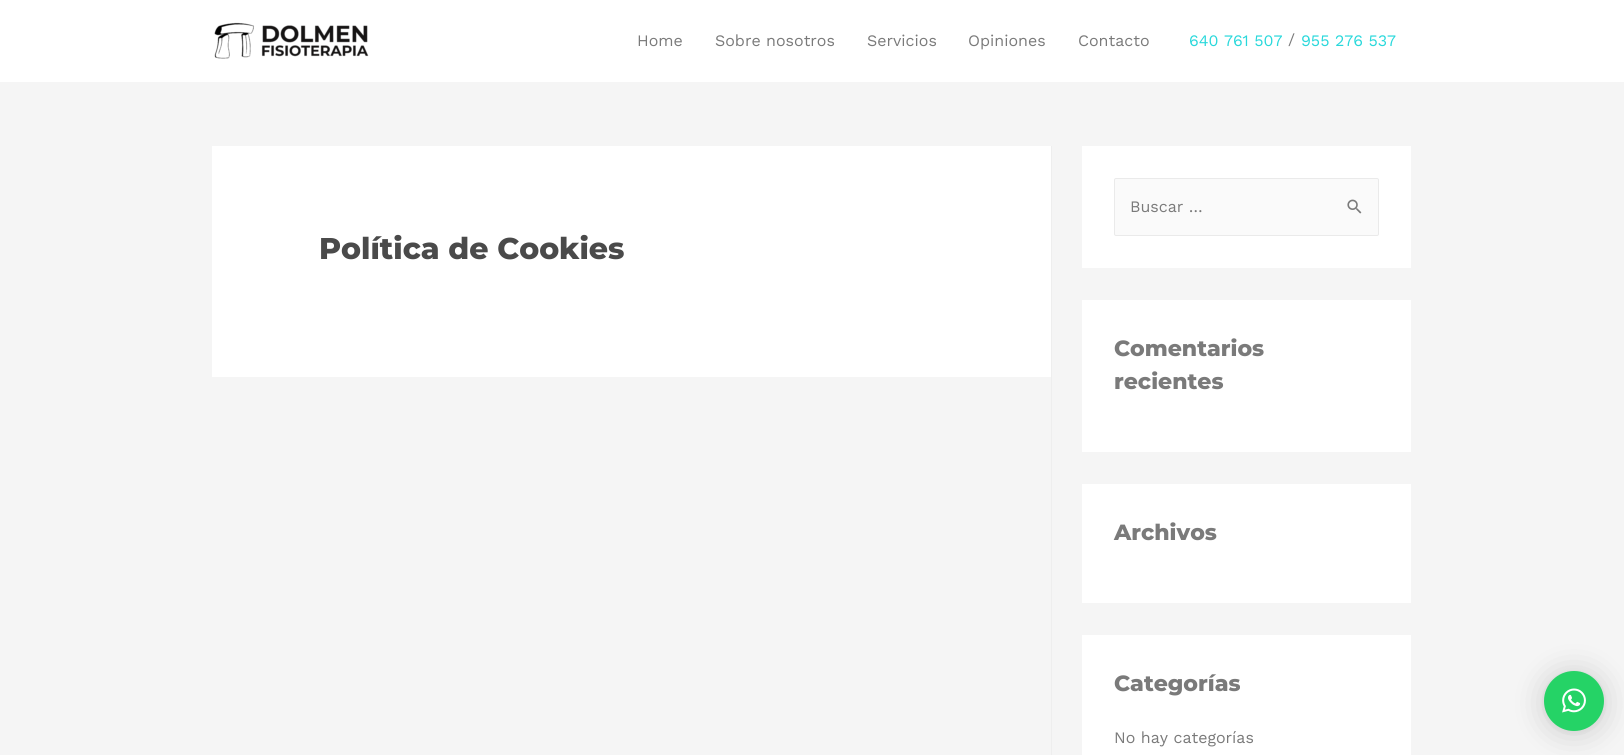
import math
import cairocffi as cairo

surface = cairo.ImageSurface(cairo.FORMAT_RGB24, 1624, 755)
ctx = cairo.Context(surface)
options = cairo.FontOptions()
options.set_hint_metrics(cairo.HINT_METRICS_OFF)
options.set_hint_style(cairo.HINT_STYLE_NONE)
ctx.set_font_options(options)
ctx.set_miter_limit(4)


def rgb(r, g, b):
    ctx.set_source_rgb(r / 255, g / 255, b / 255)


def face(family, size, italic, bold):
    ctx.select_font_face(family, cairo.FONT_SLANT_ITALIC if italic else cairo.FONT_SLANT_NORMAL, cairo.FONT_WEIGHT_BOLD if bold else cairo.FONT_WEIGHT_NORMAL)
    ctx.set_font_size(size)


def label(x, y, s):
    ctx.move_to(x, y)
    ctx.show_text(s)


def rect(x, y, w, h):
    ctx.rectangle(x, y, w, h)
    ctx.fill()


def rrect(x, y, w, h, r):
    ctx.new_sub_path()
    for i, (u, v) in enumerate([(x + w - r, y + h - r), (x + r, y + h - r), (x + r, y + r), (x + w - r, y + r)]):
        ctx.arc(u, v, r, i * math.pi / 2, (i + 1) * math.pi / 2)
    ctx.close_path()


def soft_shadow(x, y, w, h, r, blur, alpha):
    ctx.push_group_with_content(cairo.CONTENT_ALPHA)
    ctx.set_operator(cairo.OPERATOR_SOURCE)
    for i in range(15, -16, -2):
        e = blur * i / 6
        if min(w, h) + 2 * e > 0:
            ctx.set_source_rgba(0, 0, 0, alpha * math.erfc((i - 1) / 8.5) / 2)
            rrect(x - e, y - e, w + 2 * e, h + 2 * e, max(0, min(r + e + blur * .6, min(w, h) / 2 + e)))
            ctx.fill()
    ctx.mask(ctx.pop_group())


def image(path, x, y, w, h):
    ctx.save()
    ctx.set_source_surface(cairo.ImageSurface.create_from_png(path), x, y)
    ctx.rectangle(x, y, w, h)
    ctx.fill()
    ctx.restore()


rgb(245, 245, 245)
ctx.paint()
rgb(255, 255, 255)
rect(0, 0, 1624, 82)
image('image0.png', 214, 22, 155, 37)
face('Work Sans', 16, 0, 0)
rgb(122, 122, 122)
label(637, 46, 'Home')
label(715, 46, 'Sobre nosotros')
label(867, 46, 'Servicios')
label(968, 46, 'Opiniones')
label(1078, 46, 'Contacto')
rgb(41, 216, 219)
label(1189, 46, '640 761 507')
rgb(122, 122, 122)
label(1288, 45, '/')
rgb(41, 216, 219)
label(1301, 46, '955 276 537')
rgb(255, 255, 255)
rect(212, 146, 839, 231)
face('Montserrat Thin', 30, 0, 0)
rgb(74, 74, 74)
label(319, 259, 'Política de Cookies')
rgb(238, 238, 238)
rect(1051, 146, 1, 609)
rgb(255, 255, 255)
rect(1082, 146, 329, 122)
rgb(250, 250, 250)
rrect(1114.5, 178.5, 264, 57, 1.5)
ctx.fill_preserve()
rgb(234, 234, 234)
ctx.set_line_width(1)
ctx.stroke()
face('Work Sans', 16, 0, 0)
rgb(122, 122, 122)
label(1130, 212, 'Buscar …')
image('image1.png', 1347, 199, 15, 15)
rgb(255, 255, 255)
rect(1082, 300, 329, 152)
face('Montserrat Thin', 22, 0, 0)
rgb(122, 122, 122)
label(1114, 356, 'Comentarios')
label(1114, 389, 'recientes')
rgb(255, 255, 255)
rect(1082, 484, 329, 119)
rgb(122, 122, 122)
label(1114, 540, 'Archivos')
rgb(255, 255, 255)
rect(1082, 635, 329, 120)
rgb(122, 122, 122)
label(1114, 691, 'Categorías')
face('Work Sans', 16, 0, 0)
label(1114, 743, 'No hay categorías')
rgb(0, 0, 0)
soft_shadow(1544, 673, 60, 60, 30, 16, 0.16)
soft_shadow(1544, 672, 60, 60, 30, 3, 0.06)
rgb(37, 211, 102)
ctx.arc(1574, 701, 30, 0, 2 * math.pi)
ctx.fill()
image('image2.png', 1562, 688, 24, 25)
surface.write_to_png('render.png')
